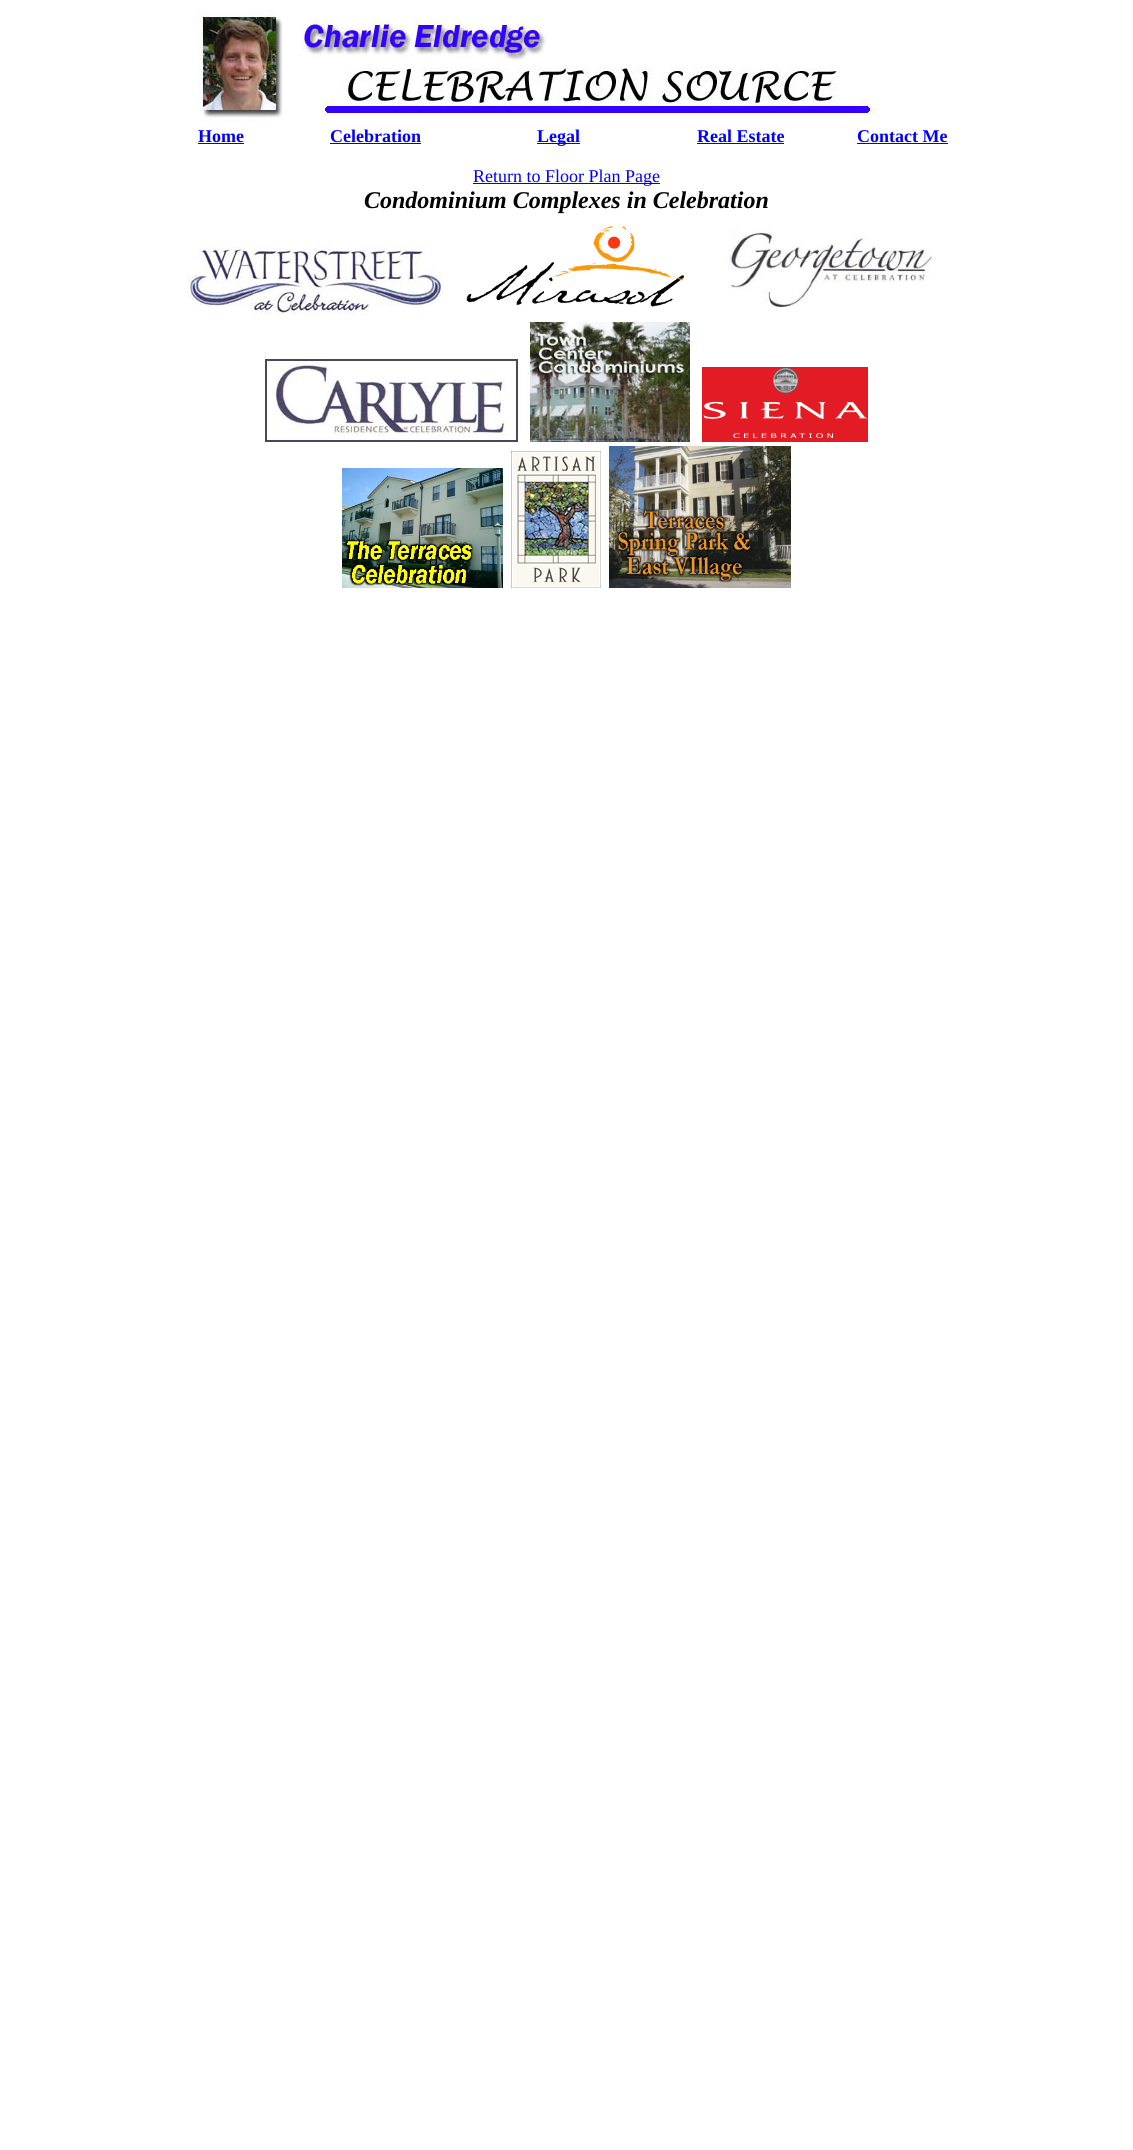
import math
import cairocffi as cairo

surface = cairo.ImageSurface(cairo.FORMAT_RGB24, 1133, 2150)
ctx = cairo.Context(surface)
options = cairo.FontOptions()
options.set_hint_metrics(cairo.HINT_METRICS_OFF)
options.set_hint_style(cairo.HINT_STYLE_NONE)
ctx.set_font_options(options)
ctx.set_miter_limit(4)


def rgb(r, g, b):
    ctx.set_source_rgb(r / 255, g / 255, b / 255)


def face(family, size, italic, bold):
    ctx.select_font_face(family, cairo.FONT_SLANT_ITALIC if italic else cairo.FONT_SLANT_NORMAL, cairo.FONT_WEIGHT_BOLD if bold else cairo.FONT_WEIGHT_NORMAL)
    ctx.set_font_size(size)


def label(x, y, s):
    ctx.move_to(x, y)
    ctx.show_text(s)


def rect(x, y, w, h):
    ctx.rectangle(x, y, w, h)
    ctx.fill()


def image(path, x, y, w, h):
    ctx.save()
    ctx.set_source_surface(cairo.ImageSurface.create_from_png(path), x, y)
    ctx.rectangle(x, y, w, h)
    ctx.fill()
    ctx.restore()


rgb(255, 255, 255)
ctx.paint()
image('image0.png', 197, 11, 680, 111)
face('Liberation Serif', 18, 0, 1)
rgb(0, 0, 255)
label(198, 142, 'Home')
rect(198, 143, 46, 1)
label(330, 142, 'Celebration')
rect(330, 143, 91, 1)
rect(537, 143, 43, 1)
label(537, 142, 'Legal')
label(697, 142, 'Real Estate')
rect(697, 143, 87, 1)
label(857, 142, 'Contact Me')
rect(857, 143, 91, 1)
rect(473, 183, 187, 1)
face('Liberation Serif', 18, 0, 0)
label(473, 182, 'Return to Floor Plan Page')
face('Liberation Serif', 24, 1, 1)
rgb(0, 0, 0)
label(364, 208, 'Condominium Complexes in Celebration')
image('image1.png', 187, 243, 256, 72)
image('image2.png', 466, 226, 219, 81)
image('image3.png', 729, 228, 207, 80)
image('image4.png', 265, 359, 253, 83)
image('image5.png', 530, 322, 160, 120)
image('image6.png', 702, 367, 166, 75)
image('image7.png', 342, 468, 161, 120)
image('image8.png', 511, 451, 90, 137)
image('image9.png', 609, 446, 182, 142)
surface.write_to_png('render.png')
